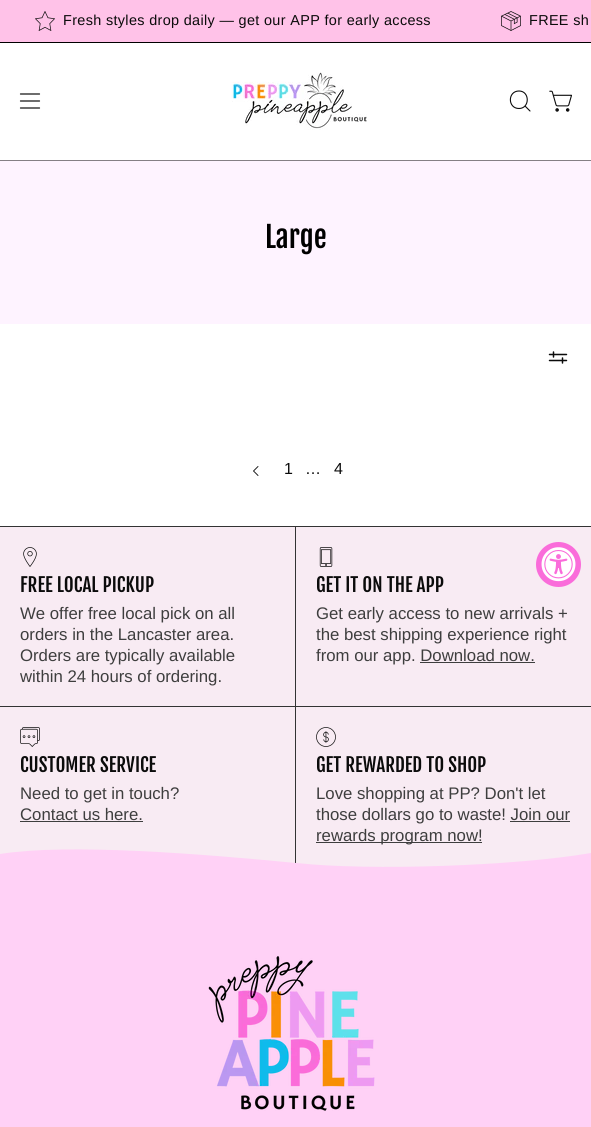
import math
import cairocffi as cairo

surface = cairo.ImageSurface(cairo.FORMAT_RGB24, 591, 1127)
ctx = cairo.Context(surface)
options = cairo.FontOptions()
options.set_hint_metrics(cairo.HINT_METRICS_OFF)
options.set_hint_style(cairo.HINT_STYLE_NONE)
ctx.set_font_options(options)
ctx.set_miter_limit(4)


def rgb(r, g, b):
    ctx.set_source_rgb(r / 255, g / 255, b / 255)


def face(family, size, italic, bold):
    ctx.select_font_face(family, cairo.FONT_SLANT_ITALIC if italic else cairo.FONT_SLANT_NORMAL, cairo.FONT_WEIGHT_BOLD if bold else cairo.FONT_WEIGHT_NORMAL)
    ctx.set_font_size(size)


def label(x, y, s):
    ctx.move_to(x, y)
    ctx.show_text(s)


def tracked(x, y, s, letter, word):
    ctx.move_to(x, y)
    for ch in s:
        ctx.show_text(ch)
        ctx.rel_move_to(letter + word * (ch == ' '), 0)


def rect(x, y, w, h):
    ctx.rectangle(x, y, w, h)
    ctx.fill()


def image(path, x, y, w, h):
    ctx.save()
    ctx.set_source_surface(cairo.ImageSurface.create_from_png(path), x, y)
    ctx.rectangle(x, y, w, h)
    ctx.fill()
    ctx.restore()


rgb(255, 255, 255)
ctx.paint()
rgb(255, 194, 232)
rect(0, 0, 591, 42)
rgb(0, 0, 0)
rect(0, 42, 591, 1)
image('image0.png', 35, 11, 20, 20)
face('Arimo', 14.4, 0, 0)
rgb(11, 11, 11)
tracked(63, 25, 'Fresh styles drop daily — get our APP for early access', 0.35, 0)
image('image1.png', 501, 11, 20, 20)
tracked(529, 25, 'FREE sh', 0.35, 0)
ctx.new_path()
ctx.move_to(20.5, 101)
ctx.line_to(39.5, 101)
ctx.move_to(20.5, 94)
ctx.line_to(39.5, 94)
ctx.move_to(20.5, 108)
ctx.line_to(39.5, 108)
ctx.set_line_width(1.2)
ctx.set_line_cap(cairo.LINE_CAP_ROUND)
ctx.set_line_join(cairo.LINE_JOIN_ROUND)
ctx.stroke()
image('image2.png', 231, 72, 136, 58)
ctx.new_path()
ctx.move_to(519, 108.5)
ctx.curve_to(530, 108.5, 530, 91, 519, 91)
ctx.curve_to(507.5, 91, 507.5, 108.5, 519, 108.5)
ctx.close_path()
ctx.move_to(525, 106)
ctx.line_to(530, 111)
ctx.set_line_width(1.1)
ctx.stroke()
image('image3.png', 549, 90, 23, 22)
rgb(133, 127, 133)
rect(0, 160, 591, 1)
rgb(254, 243, 255)
rect(0, 161, 591, 163)
face('Fjalla One', 29, 0, 0)
rgb(0, 0, 0)
label(265, 248, 'Large')
image('image4.png', 548, 351, 20, 13)
ctx.new_path()
ctx.move_to(258, 475.5)
ctx.line_to(253.5, 471)
ctx.line_to(258, 466.5)
rgb(11, 11, 11)
ctx.set_line_width(0.9)
ctx.stroke()
face('Arimo', 16, 0, 0)
label(284, 474, '1')
label(305, 474, '…')
label(334, 474, '4')
rgb(248, 235, 243)
rect(0, 527, 591, 340)
rgb(250, 108, 218)
ctx.new_path()
ctx.arc(558.5, 564.5, 22.5, 0, 2 * math.pi)
ctx.fill()
image('image5.png', 541, 547, 35, 35)
rgb(51, 51, 51)
rect(0, 526, 591, 1)
image('image6.png', 23, 547, 14, 20)
face('Fjalla One', 19, 0, 0)
rgb(11, 11, 11)
label(20, 592, 'FREE LOCAL PICKUP')
face('Arimo', 16.75, 0, 0)
rgb(62, 62, 62)
label(20, 619, 'We offer free local pick on all')
label(20, 640, 'orders in the Lancaster area.')
label(20, 661, 'Orders are typically available')
label(20, 682, 'within 24 hours of ordering.')
rgb(51, 51, 51)
rect(0, 706, 591, 1)
rect(295, 527, 1, 340)
image('image7.png', 319, 547, 14, 20)
face('Fjalla One', 19, 0, 0)
rgb(11, 11, 11)
label(316, 592, 'GET IT ON THE APP')
face('Arimo', 16.75, 0, 0)
rgb(62, 62, 62)
label(316, 619, 'Get early access to new arrivals +')
label(316, 640, 'the best shipping experience right')
label(316, 661, 'from our app. Download now.')
rect(420, 662, 115, 1)
image('image8.png', 20, 727, 20, 20)
face('Fjalla One', 19, 0, 0)
rgb(11, 11, 11)
label(20, 772, 'CUSTOMER SERVICE')
face('Arimo', 16.75, 0, 0)
rgb(62, 62, 62)
label(20, 799, 'Need to get in touch?')
label(20, 820, 'Contact us here.')
rect(20, 821, 123, 1)
image('image9.png', 316, 727, 20, 20)
face('Fjalla One', 19, 0, 0)
rgb(11, 11, 11)
label(316, 772, 'GET REWARDED TO SHOP')
face('Arimo', 16.75, 0, 0)
rgb(62, 62, 62)
label(316, 799, 'Love shopping at PP? Don\'t let')
label(316, 820, 'those dollars go to waste! Join our')
rect(316, 842, 166, 1)
label(316, 841, 'rewards program now!')
rect(510, 821, 60, 1)
rgb(255, 209, 246)
rect(0, 877, 591, 250)
ctx.new_path()
ctx.move_to(0, 854)
ctx.curve_to(68, 843, 203, 854, 296, 863)
ctx.curve_to(371, 871, 515, 866, 591, 853)
ctx.line_to(591, 877)
ctx.line_to(0, 877)
ctx.fill()
image('image10.png', 208, 956, 167, 155)
surface.write_to_png('render.png')
